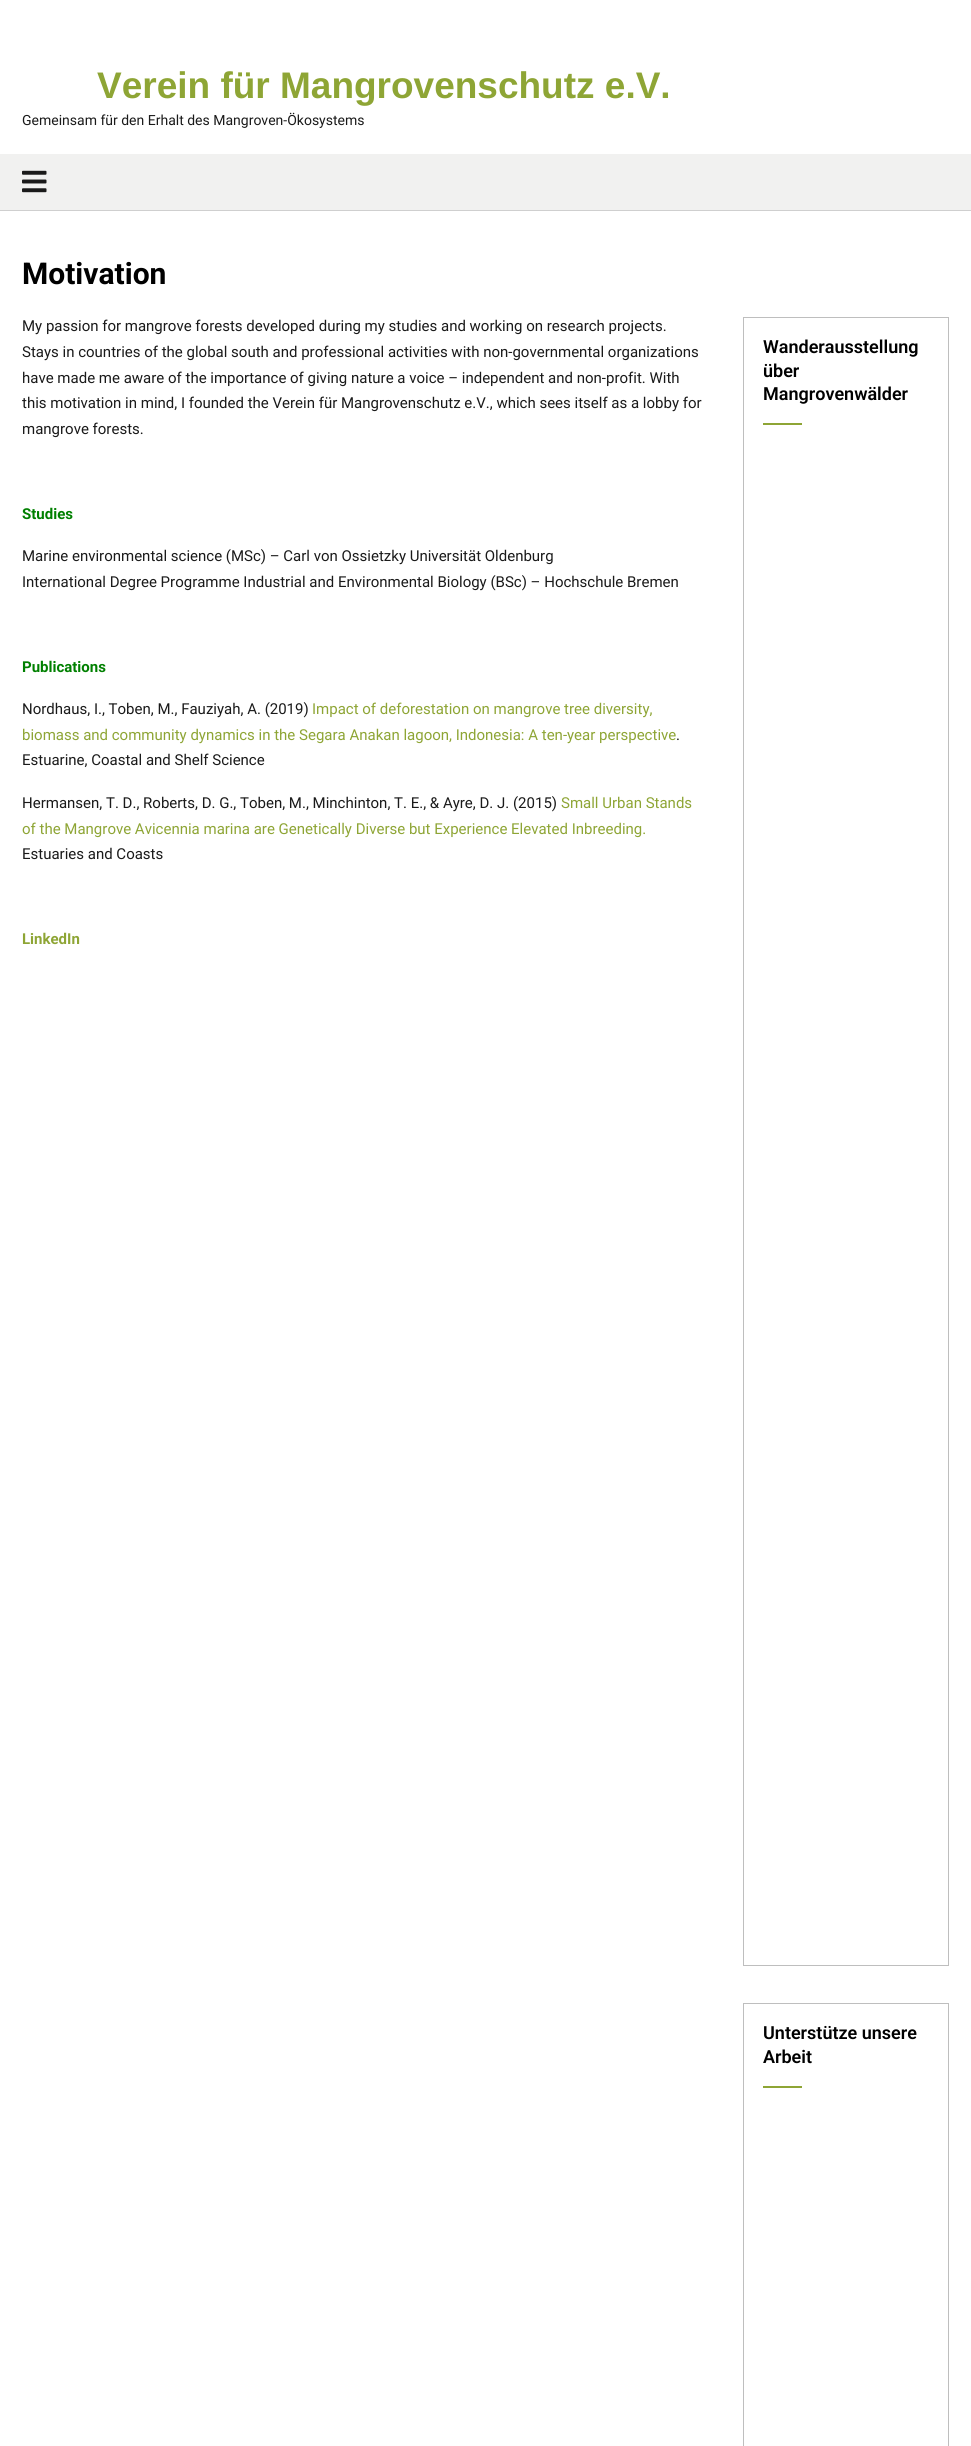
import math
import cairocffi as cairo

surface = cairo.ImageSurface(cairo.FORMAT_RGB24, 971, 2446)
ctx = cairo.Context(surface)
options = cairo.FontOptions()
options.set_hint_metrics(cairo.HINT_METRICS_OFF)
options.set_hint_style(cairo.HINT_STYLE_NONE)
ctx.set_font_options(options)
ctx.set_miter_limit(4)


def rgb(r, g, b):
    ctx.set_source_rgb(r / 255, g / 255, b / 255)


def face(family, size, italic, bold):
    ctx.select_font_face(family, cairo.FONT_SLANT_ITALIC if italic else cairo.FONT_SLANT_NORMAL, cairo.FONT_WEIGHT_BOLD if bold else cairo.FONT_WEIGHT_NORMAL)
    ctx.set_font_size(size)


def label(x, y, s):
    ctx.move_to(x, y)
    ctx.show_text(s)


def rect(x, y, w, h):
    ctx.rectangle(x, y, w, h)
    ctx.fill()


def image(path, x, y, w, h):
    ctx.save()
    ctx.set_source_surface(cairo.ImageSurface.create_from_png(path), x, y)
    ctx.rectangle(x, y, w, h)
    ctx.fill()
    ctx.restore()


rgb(255, 255, 255)
ctx.paint()
face('Liberation Sans', 37, 0, 1)
rgb(142, 165, 53)
label(97, 98, 'Verein für Mangrovenschutz e.V.')
face('Roboto', 14, 0, 0)
rgb(26, 26, 26)
label(22, 125, 'Gemeinsam für den Erhalt des Mangroven-Ökosystems')
rgb(241, 241, 240)
rect(0, 154, 971, 56)
rgb(207, 207, 207)
rect(0, 210, 971, 1)
image('image0.png', 22, 170, 25, 23)
face('Roboto', 30, 0, 1)
rgb(0, 0, 0)
label(22, 284, 'Motivation')
face('Roboto', 15, 0, 0)
rgb(26, 26, 26)
label(22, 331, 'My passion for mangrove forests developed during my studies and working on research projects.')
label(22, 357, 'Stays in countries of the global south and professional activities with non-governmental organizations')
label(22, 383, 'have made me aware of the importance of giving nature a voice – independent and non-profit. With')
label(22, 408, 'this motivation in mind, I founded the Verein für Mangrovenschutz e.V., which sees itself as a lobby for')
label(22, 434, 'mangrove forests.')
face('Roboto', 15, 0, 1)
rgb(0, 128, 0)
label(22, 519, 'Studies')
face('Roboto', 15, 0, 0)
rgb(26, 26, 26)
label(22, 561, 'Marine environmental science (MSc) – Carl von Ossietzky Universität Oldenburg')
label(22, 587, 'International Degree Programme Industrial and Environmental Biology (BSc) – Hochschule Bremen')
face('Roboto', 15, 0, 1)
rgb(0, 128, 0)
label(22, 672, 'Publications')
face('Roboto', 15, 0, 0)
rgb(26, 26, 26)
label(22, 714, 'Nordhaus, I., Toben, M., Fauziyah, A. (2019)')
rgb(142, 165, 53)
label(312, 714, 'Impact of deforestation on mangrove tree diversity,')
label(22, 740, 'biomass and community dynamics in the Segara Anakan lagoon, Indonesia: A ten-year perspective')
rgb(26, 26, 26)
label(676, 740, '.')
label(22, 765, 'Estuarine, Coastal and Shelf Science')
label(22, 808, 'Hermansen, T. D., Roberts, D. G., Toben, M., Minchinton, T. E., & Ayre, D. J. (2015)')
rgb(142, 165, 53)
label(561, 808, 'Small Urban Stands')
label(22, 834, 'of the Mangrove Avicennia marina are Genetically Diverse but Experience Elevated Inbreeding.')
rgb(26, 26, 26)
label(22, 859, 'Estuaries and Coasts')
face('Roboto', 15, 0, 1)
rgb(142, 165, 53)
label(22, 944, 'LinkedIn')
ctx.rectangle(743.5, 317.5, 205, 1648)
rgb(190, 190, 190)
ctx.set_line_width(1)
ctx.stroke()
face('Roboto SemiBold', 18, 0, 0)
rgb(0, 0, 0)
label(763, 353, 'Wanderausstellung')
label(763, 377, 'über')
label(763, 400, 'Mangrovenwälder')
rgb(142, 165, 53)
rect(763, 423, 39, 2)
ctx.rectangle(743.5, 2003.5, 205, 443)
rgb(190, 190, 190)
ctx.stroke()
rgb(0, 0, 0)
label(763, 2039, 'Unterstütze unsere')
label(763, 2063, 'Arbeit')
rgb(142, 165, 53)
rect(763, 2086, 39, 2)
surface.write_to_png('render.png')
